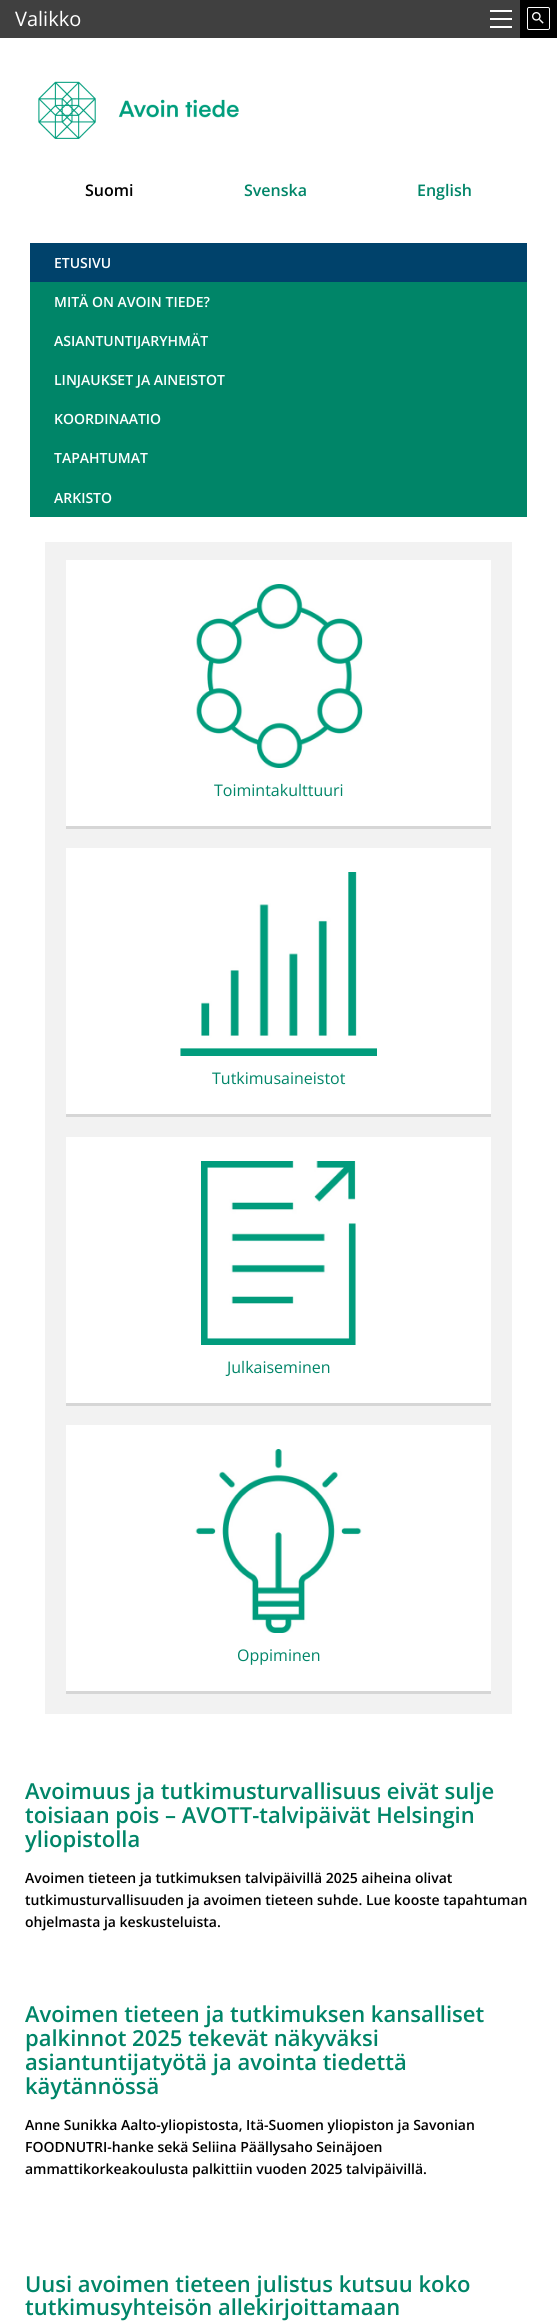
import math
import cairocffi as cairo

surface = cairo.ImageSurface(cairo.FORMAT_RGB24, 557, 2324)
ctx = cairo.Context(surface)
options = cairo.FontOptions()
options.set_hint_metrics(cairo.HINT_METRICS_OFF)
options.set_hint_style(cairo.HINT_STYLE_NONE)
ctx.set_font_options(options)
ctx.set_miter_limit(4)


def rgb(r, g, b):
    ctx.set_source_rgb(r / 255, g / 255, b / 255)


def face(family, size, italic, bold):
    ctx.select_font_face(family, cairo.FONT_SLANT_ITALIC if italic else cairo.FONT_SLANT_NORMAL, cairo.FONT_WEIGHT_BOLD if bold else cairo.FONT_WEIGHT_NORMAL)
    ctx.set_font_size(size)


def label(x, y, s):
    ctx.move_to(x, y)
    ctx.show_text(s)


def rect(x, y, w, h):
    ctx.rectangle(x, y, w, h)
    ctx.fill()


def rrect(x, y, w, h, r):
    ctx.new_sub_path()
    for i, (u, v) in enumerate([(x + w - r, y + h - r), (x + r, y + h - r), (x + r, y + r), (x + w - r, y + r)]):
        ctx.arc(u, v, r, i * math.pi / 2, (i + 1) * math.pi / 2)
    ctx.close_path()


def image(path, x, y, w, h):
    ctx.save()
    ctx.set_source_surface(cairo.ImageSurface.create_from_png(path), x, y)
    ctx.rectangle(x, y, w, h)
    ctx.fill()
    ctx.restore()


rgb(255, 255, 255)
ctx.paint()
rgb(0, 0, 0)
rect(520, 0, 37, 38)
rgb(64, 64, 64)
rect(0, 0, 520, 38)
face('Open Sans', 20, 0, 0)
rgb(255, 255, 255)
label(15, 26, 'Valikko')
image('image0.png', 490, 10, 22, 18)
rrect(527.5, 7.5, 22, 22, 1.5)
ctx.set_line_width(1)
ctx.stroke()
image('image1.png', 532, 12, 12, 12)
image('image2.png', 38, 81, 201, 58)
face('Open Sans SemiBold', 16, 0, 0)
rgb(0, 0, 0)
label(85, 196, 'Suomi')
rgb(0, 133, 104)
label(244, 196, 'Svenska')
label(417, 196, 'English')
rect(30, 282, 497, 235)
rgb(0, 66, 107)
rect(30, 243, 497, 39)
face('Open Sans SemiBold', 14, 0, 0)
rgb(255, 255, 255)
label(54, 268, 'ETUSIVU')
label(54, 307, 'MITÄ ON AVOIN TIEDE?')
label(54, 346, 'ASIANTUNTIJARYHMÄT')
label(54, 385, 'LINJAUKSET JA AINEISTOT')
label(54, 424, 'KOORDINAATIO')
label(54, 463, 'TAPAHTUMAT')
label(54, 503, 'ARKISTO')
rgb(242, 242, 242)
rect(45, 542, 467, 1172)
rgb(255, 255, 255)
rect(66, 560, 425, 266)
rgb(214, 214, 214)
rect(66, 826, 425, 3)
image('image3.png', 196, 584, 167, 184)
face('Open Sans', 16, 0, 0)
rgb(0, 133, 104)
label(214, 796, 'Toimintakulttuuri')
rgb(255, 255, 255)
rect(66, 848, 425, 266)
rgb(214, 214, 214)
rect(66, 1114, 425, 3)
image('image4.png', 180, 872, 197, 184)
rgb(0, 133, 104)
label(212, 1084, 'Tutkimusaineistot')
rgb(255, 255, 255)
rect(66, 1137, 425, 266)
rgb(214, 214, 214)
rect(66, 1403, 425, 3)
image('image5.png', 201, 1161, 155, 184)
rgb(0, 133, 104)
label(227, 1373, 'Julkaiseminen')
rgb(255, 255, 255)
rect(66, 1425, 425, 266)
rgb(214, 214, 214)
rect(66, 1691, 425, 3)
image('image6.png', 195, 1449, 167, 184)
rgb(0, 133, 104)
label(237, 1661, 'Oppiminen')
face('Open Sans SemiBold', 22, 0, 0)
label(25, 1799, 'Avoimuus ja tutkimusturvallisuus eivät sulje')
label(25, 1823, 'toisiaan pois – AVOTT-talvipäivät Helsingin')
label(25, 1847, 'yliopistolla')
face('Open Sans SemiBold', 14, 0, 0)
rgb(0, 0, 0)
label(25, 1883, 'Avoimen tieteen ja tutkimuksen talvipäivillä 2025 aiheina olivat')
label(25, 1905, 'tutkimusturvallisuuden ja avoimen tieteen suhde. Lue kooste tapahtuman')
label(25, 1927, 'ohjelmasta ja keskusteluista.')
face('Open Sans SemiBold', 22, 0, 0)
rgb(0, 133, 104)
label(25, 2022, 'Avoimen tieteen ja tutkimuksen kansalliset')
label(25, 2046, 'palkinnot 2025 tekevät näkyväksi')
label(25, 2070, 'asiantuntijatyötä ja avointa tiedettä')
label(25, 2094, 'käytännössä')
face('Open Sans SemiBold', 14, 0, 0)
rgb(0, 0, 0)
label(25, 2130, 'Anne Sunikka Aalto-yliopistosta, Itä-Suomen yliopiston ja Savonian')
label(25, 2152, 'FOODNUTRI-hanke sekä Seliina Päällysaho Seinäjoen')
label(25, 2174, 'ammattikorkeakoulusta palkittiin vuoden 2025 talvipäivillä.')
face('Open Sans SemiBold', 22, 0, 0)
rgb(0, 133, 104)
label(25, 2292, 'Uusi avoimen tieteen julistus kutsuu koko')
label(25, 2315, 'tutkimusyhteisön allekirjoittamaan')
surface.write_to_png('render.png')
